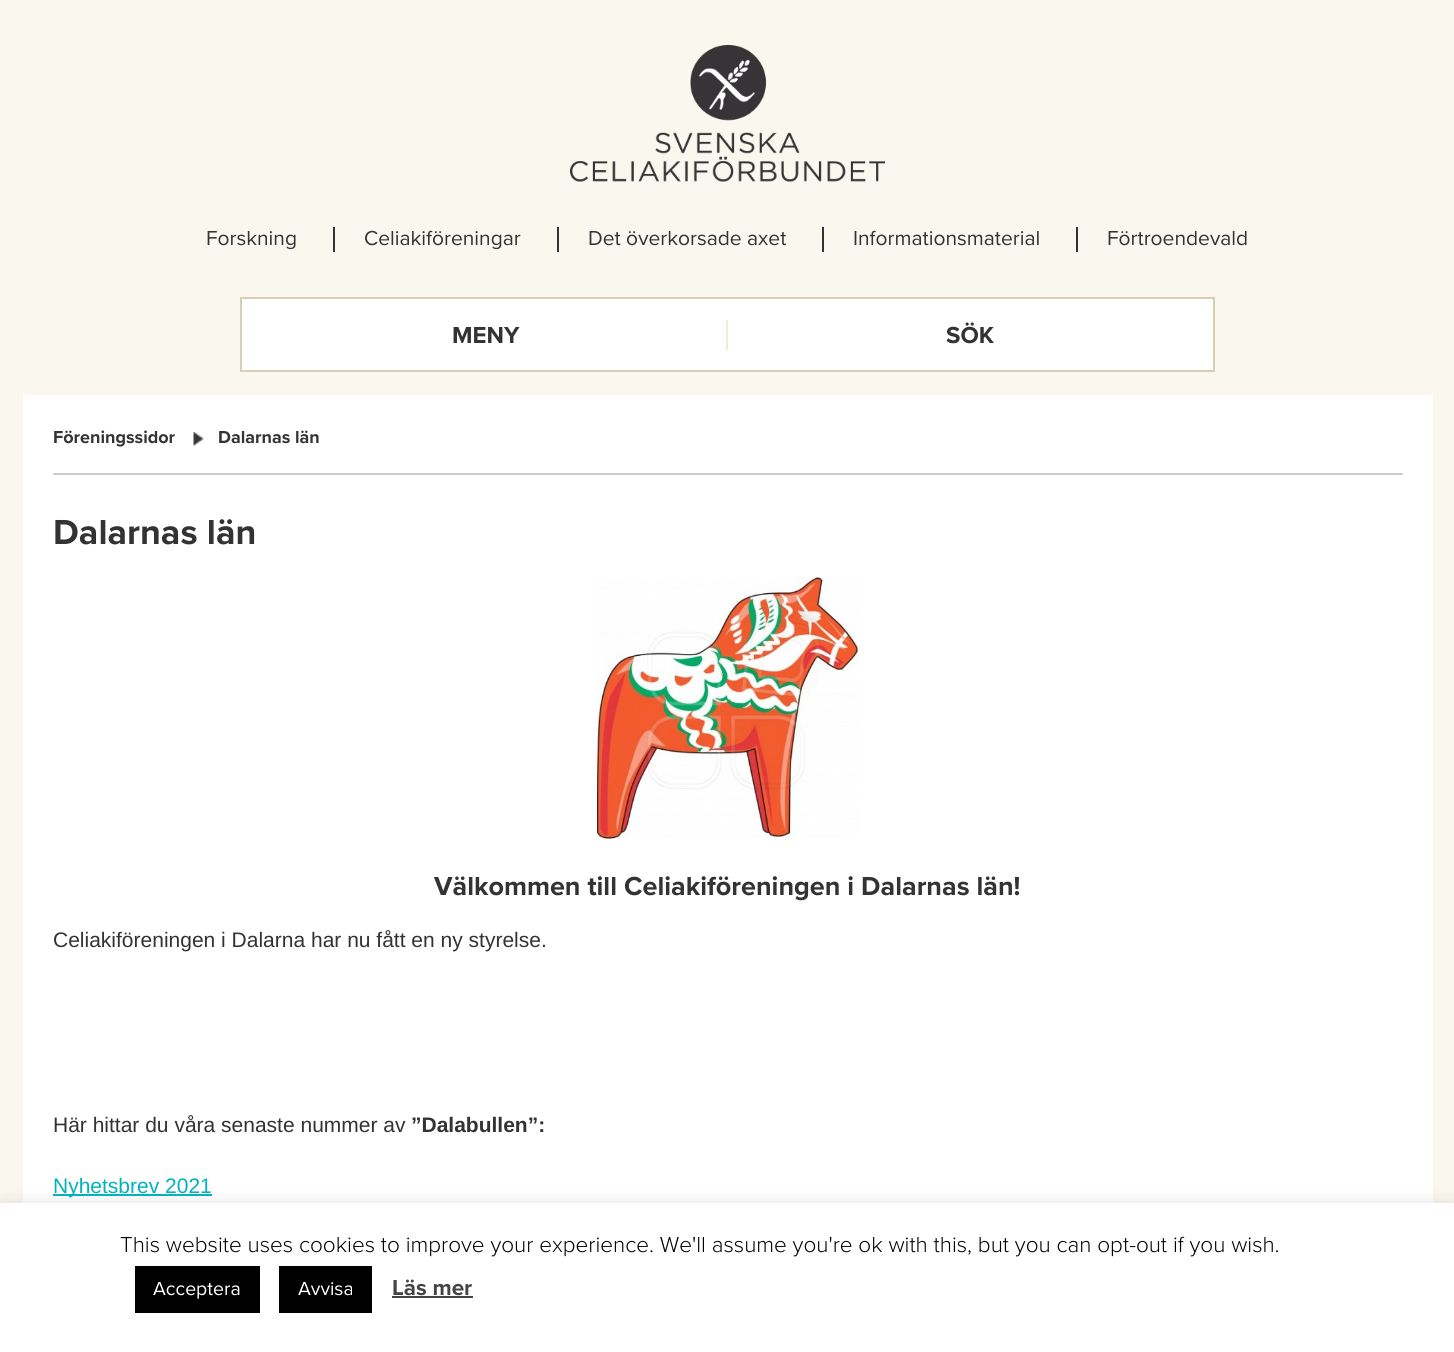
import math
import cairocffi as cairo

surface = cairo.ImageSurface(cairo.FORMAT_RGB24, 1454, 1352)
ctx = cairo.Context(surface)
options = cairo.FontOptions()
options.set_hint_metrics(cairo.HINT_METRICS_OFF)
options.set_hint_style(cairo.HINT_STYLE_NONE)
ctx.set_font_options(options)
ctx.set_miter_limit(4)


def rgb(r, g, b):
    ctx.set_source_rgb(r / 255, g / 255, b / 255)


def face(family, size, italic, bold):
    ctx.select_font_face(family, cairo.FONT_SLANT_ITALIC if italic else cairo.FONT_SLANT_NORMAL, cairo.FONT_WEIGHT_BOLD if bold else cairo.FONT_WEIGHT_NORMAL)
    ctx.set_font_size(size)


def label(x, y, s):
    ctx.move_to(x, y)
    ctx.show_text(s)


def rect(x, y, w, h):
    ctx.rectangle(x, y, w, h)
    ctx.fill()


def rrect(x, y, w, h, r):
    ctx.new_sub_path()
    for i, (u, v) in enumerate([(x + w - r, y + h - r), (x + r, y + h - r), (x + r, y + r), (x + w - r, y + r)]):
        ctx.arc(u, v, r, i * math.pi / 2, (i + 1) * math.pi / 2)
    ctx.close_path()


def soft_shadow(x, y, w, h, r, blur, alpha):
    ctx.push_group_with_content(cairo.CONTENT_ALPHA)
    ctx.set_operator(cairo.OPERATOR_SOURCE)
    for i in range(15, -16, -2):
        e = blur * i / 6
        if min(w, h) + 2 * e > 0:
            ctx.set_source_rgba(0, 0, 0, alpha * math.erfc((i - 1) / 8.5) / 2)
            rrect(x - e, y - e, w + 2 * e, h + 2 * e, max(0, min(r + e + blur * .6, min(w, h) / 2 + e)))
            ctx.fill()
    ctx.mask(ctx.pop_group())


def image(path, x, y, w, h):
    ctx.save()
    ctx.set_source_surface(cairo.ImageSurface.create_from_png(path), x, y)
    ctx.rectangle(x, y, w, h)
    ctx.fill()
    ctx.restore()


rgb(250, 247, 238)
ctx.paint()
image('image0.png', 570, 45, 315, 137)
face('Proxima Nova', 21, 0, 0)
rgb(51, 51, 51)
label(206, 245, 'Forskning')
rect(333, 227, 2, 25)
label(364, 245, 'Celiakiföreningar')
rect(557, 227, 2, 25)
label(588, 245, 'Det överkorsade axet')
rect(822, 227, 2, 25)
label(853, 245, 'Informationsmaterial')
rect(1076, 227, 2, 25)
label(1107, 245, 'Förtroendevald')
rgb(255, 255, 255)
ctx.rectangle(241, 298, 973, 73)
ctx.fill_preserve()
rgb(215, 206, 179)
ctx.stroke()
face('Proxima Nova', 24, 0, 1)
rgb(51, 51, 51)
label(452, 343, 'MENY')
rgb(239, 235, 221)
rect(726, 320, 2, 30)
rgb(51, 51, 51)
label(946, 343, 'SÖK')
rgb(255, 255, 255)
rect(23, 395, 1410, 808)
rgb(204, 204, 204)
rect(53, 473, 1350, 2)
face('Proxima Nova', 18, 0, 1)
rgb(51, 51, 51)
label(53, 443, 'Föreningssidor')
image('image1.png', 193, 432, 12, 14)
label(218, 443, 'Dalarnas län')
face('Proxima Nova', 36, 0, 1)
label(53, 544, 'Dalarnas län')
image('image2.png', 597, 577, 261, 262)
face('Proxima Nova', 27, 0, 1)
label(434, 895, 'Välkommen till Celiakiföreningen i Dalarnas län!')
face('Liberation Sans', 21, 0, 0)
label(53, 947, 'Celiakiföreningen i Dalarna har nu fått en ny styrelse.')
label(53, 1132, 'Här hittar du våra senaste nummer av')
face('Liberation Sans', 21, 0, 1)
label(411, 1132, '”Dalabullen”:')
rgb(0, 178, 188)
rect(53, 1194, 159, 2)
face('Liberation Sans', 21, 0, 0)
label(53, 1193, 'Nyhetsbrev 2021')
rgb(172, 171, 171)
soft_shadow(0, 1202, 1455, 150, 0, 7.5, 0.3)
rgb(255, 255, 255)
rect(0, 1203, 1454, 149)
face('Proxima Nova Light', 22.5, 0, 0)
rgb(2, 2, 2)
label(120, 1252, 'This website uses cookies to improve your experience. We\'ll assume you\'re ok with this, but you can opt-out if you wish.')
rgb(0, 0, 0)
rect(135, 1266, 125, 47)
face('Proxima Nova', 19.5, 0, 0)
rgb(255, 255, 255)
label(153, 1295, 'Acceptera')
rgb(0, 0, 0)
rect(279, 1266, 93, 47)
rgb(255, 255, 255)
label(298, 1295, 'Avvisa')
face('Proxima Nova', 22.5, 0, 1)
rgb(68, 68, 68)
label(392, 1295, 'Läs mer')
rect(392, 1296, 81, 2)
surface.write_to_png('render.png')
